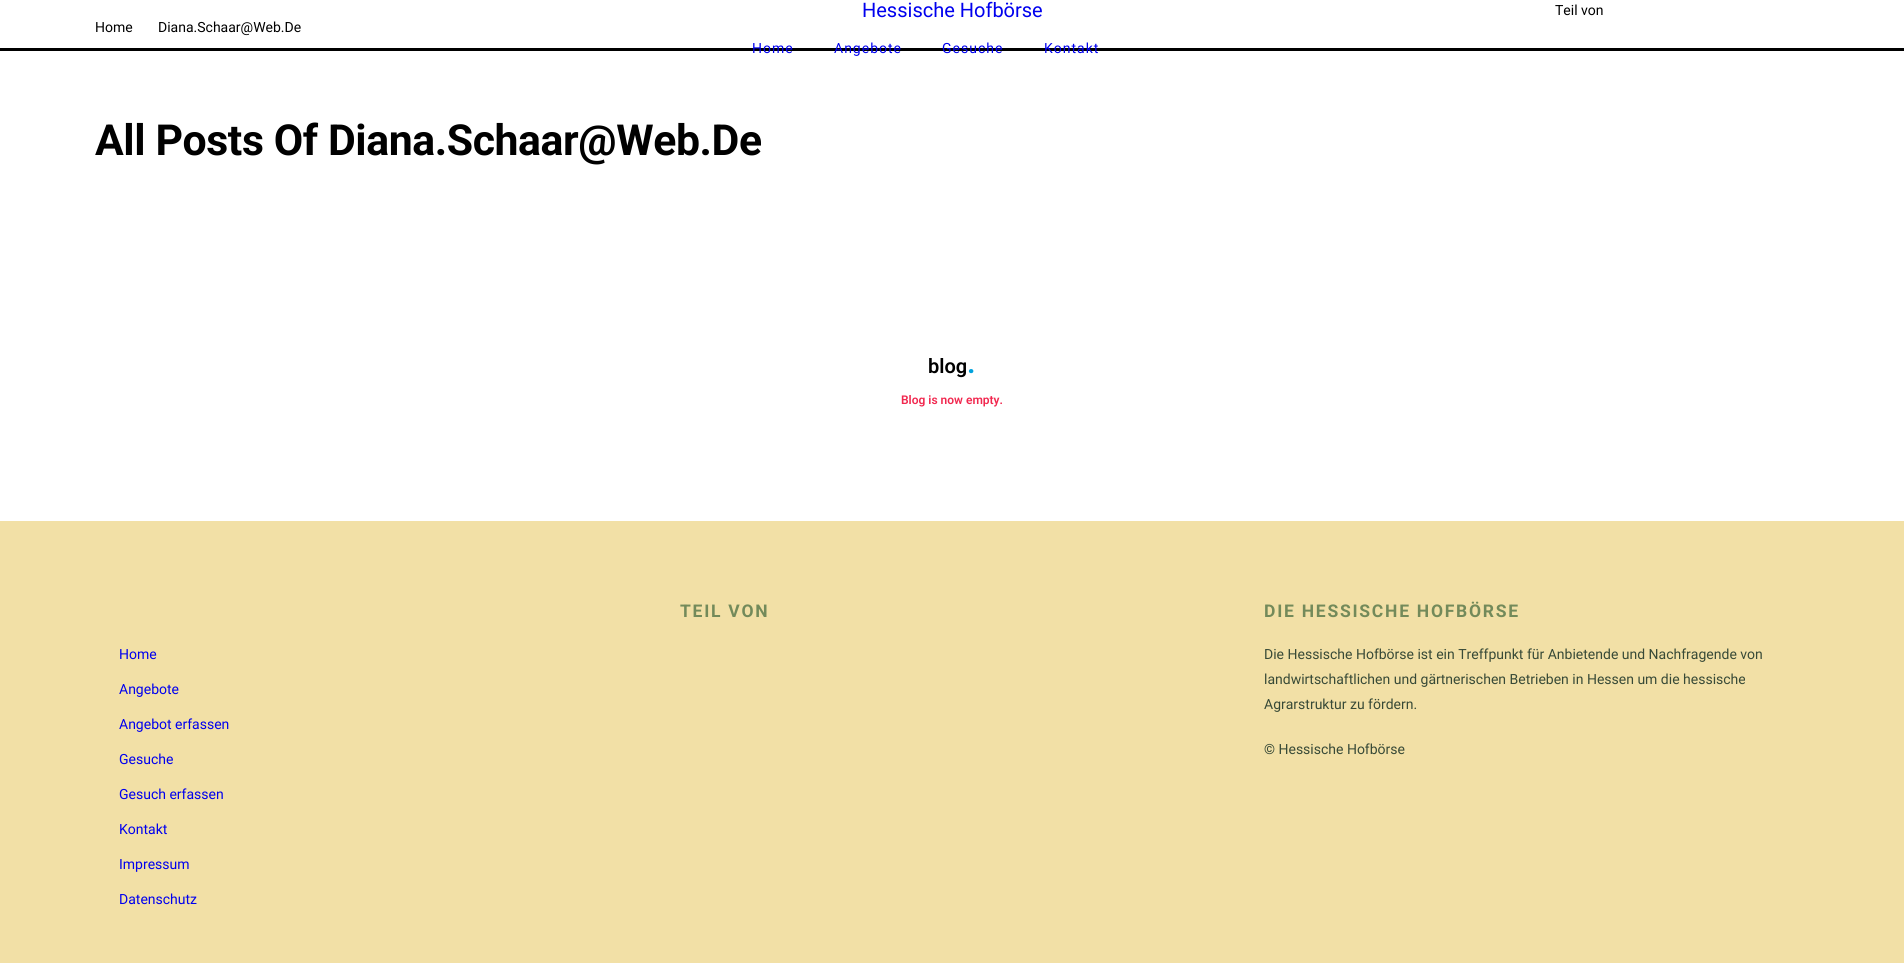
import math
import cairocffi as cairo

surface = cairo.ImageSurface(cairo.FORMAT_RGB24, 1904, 963)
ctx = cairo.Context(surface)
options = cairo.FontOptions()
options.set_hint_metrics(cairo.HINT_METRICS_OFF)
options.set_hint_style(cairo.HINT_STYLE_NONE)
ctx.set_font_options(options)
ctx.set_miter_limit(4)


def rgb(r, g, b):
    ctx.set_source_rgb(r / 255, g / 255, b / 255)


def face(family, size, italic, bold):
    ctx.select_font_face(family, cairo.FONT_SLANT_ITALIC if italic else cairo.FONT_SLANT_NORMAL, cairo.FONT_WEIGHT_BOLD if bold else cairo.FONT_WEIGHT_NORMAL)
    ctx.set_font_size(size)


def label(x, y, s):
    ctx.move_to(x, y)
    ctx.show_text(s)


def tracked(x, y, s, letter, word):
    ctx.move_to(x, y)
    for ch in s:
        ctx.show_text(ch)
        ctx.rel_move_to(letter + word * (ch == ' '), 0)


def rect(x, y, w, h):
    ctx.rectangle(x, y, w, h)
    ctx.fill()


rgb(255, 255, 255)
ctx.paint()
face('Roboto', 14, 0, 0)
rgb(0, 0, 0)
label(95, 32, 'Home')
label(158, 32, 'Diana.Schaar@Web.De')
face('Roboto', 42.75, 0, 1)
tracked(95, 155, 'All Posts Of Diana.Schaar@Web.De', -0.4, 0)
face('Roboto SemiBold', 20, 0, 0)
label(928, 373, 'blog')
face('Roboto SemiBold', 30, 0, 0)
rgb(1, 162, 221)
label(967, 373, '.')
face('Roboto SemiBold', 12, 0, 0)
rgb(241, 40, 79)
label(901, 404, 'Blog is now empty.')
rgb(0, 0, 0)
rect(0, 48, 1904, 3)
face('Roboto', 20, 0, 0)
rgb(0, 0, 238)
label(862, 17, 'Hessische Hofbörse')
face('Roboto', 14, 0, 0)
rgb(0, 0, 0)
label(1555, 15, 'Teil von')
rgb(0, 0, 238)
tracked(752, 53, 'Home', 1, 0)
tracked(834, 53, 'Angebote', 1, 0)
tracked(942, 53, 'Gesuche', 1, 0)
tracked(1044, 53, 'Kontakt', 1, 0)
rgb(242, 224, 166)
rect(0, 521, 1904, 442)
face('Roboto', 17.5, 0, 1)
rgb(115, 138, 90)
tracked(680, 617, 'TEIL VON', 1.75, 0)
tracked(1264, 617, 'DIE HESSISCHE HOFBÖRSE', 1.75, 0)
face('Roboto', 14, 0, 0)
rgb(56, 74, 55)
label(1264, 659, 'Die Hessische Hofbörse ist ein Treffpunkt für Anbietende und Nachfragende von')
label(1264, 684, 'landwirtschaftlichen und gärtnerischen Betrieben in Hessen um die hessische')
label(1264, 709, 'Agrarstruktur zu fördern.')
label(1264, 754, '© Hessische Hofbörse')
rgb(0, 0, 238)
label(119, 659, 'Home')
label(119, 694, 'Angebote')
label(119, 729, 'Angebot erfassen')
label(119, 764, 'Gesuche')
label(119, 799, 'Gesuch erfassen')
label(119, 834, 'Kontakt')
label(119, 869, 'Impressum')
label(119, 904, 'Datenschutz')
surface.write_to_png('render.png')
